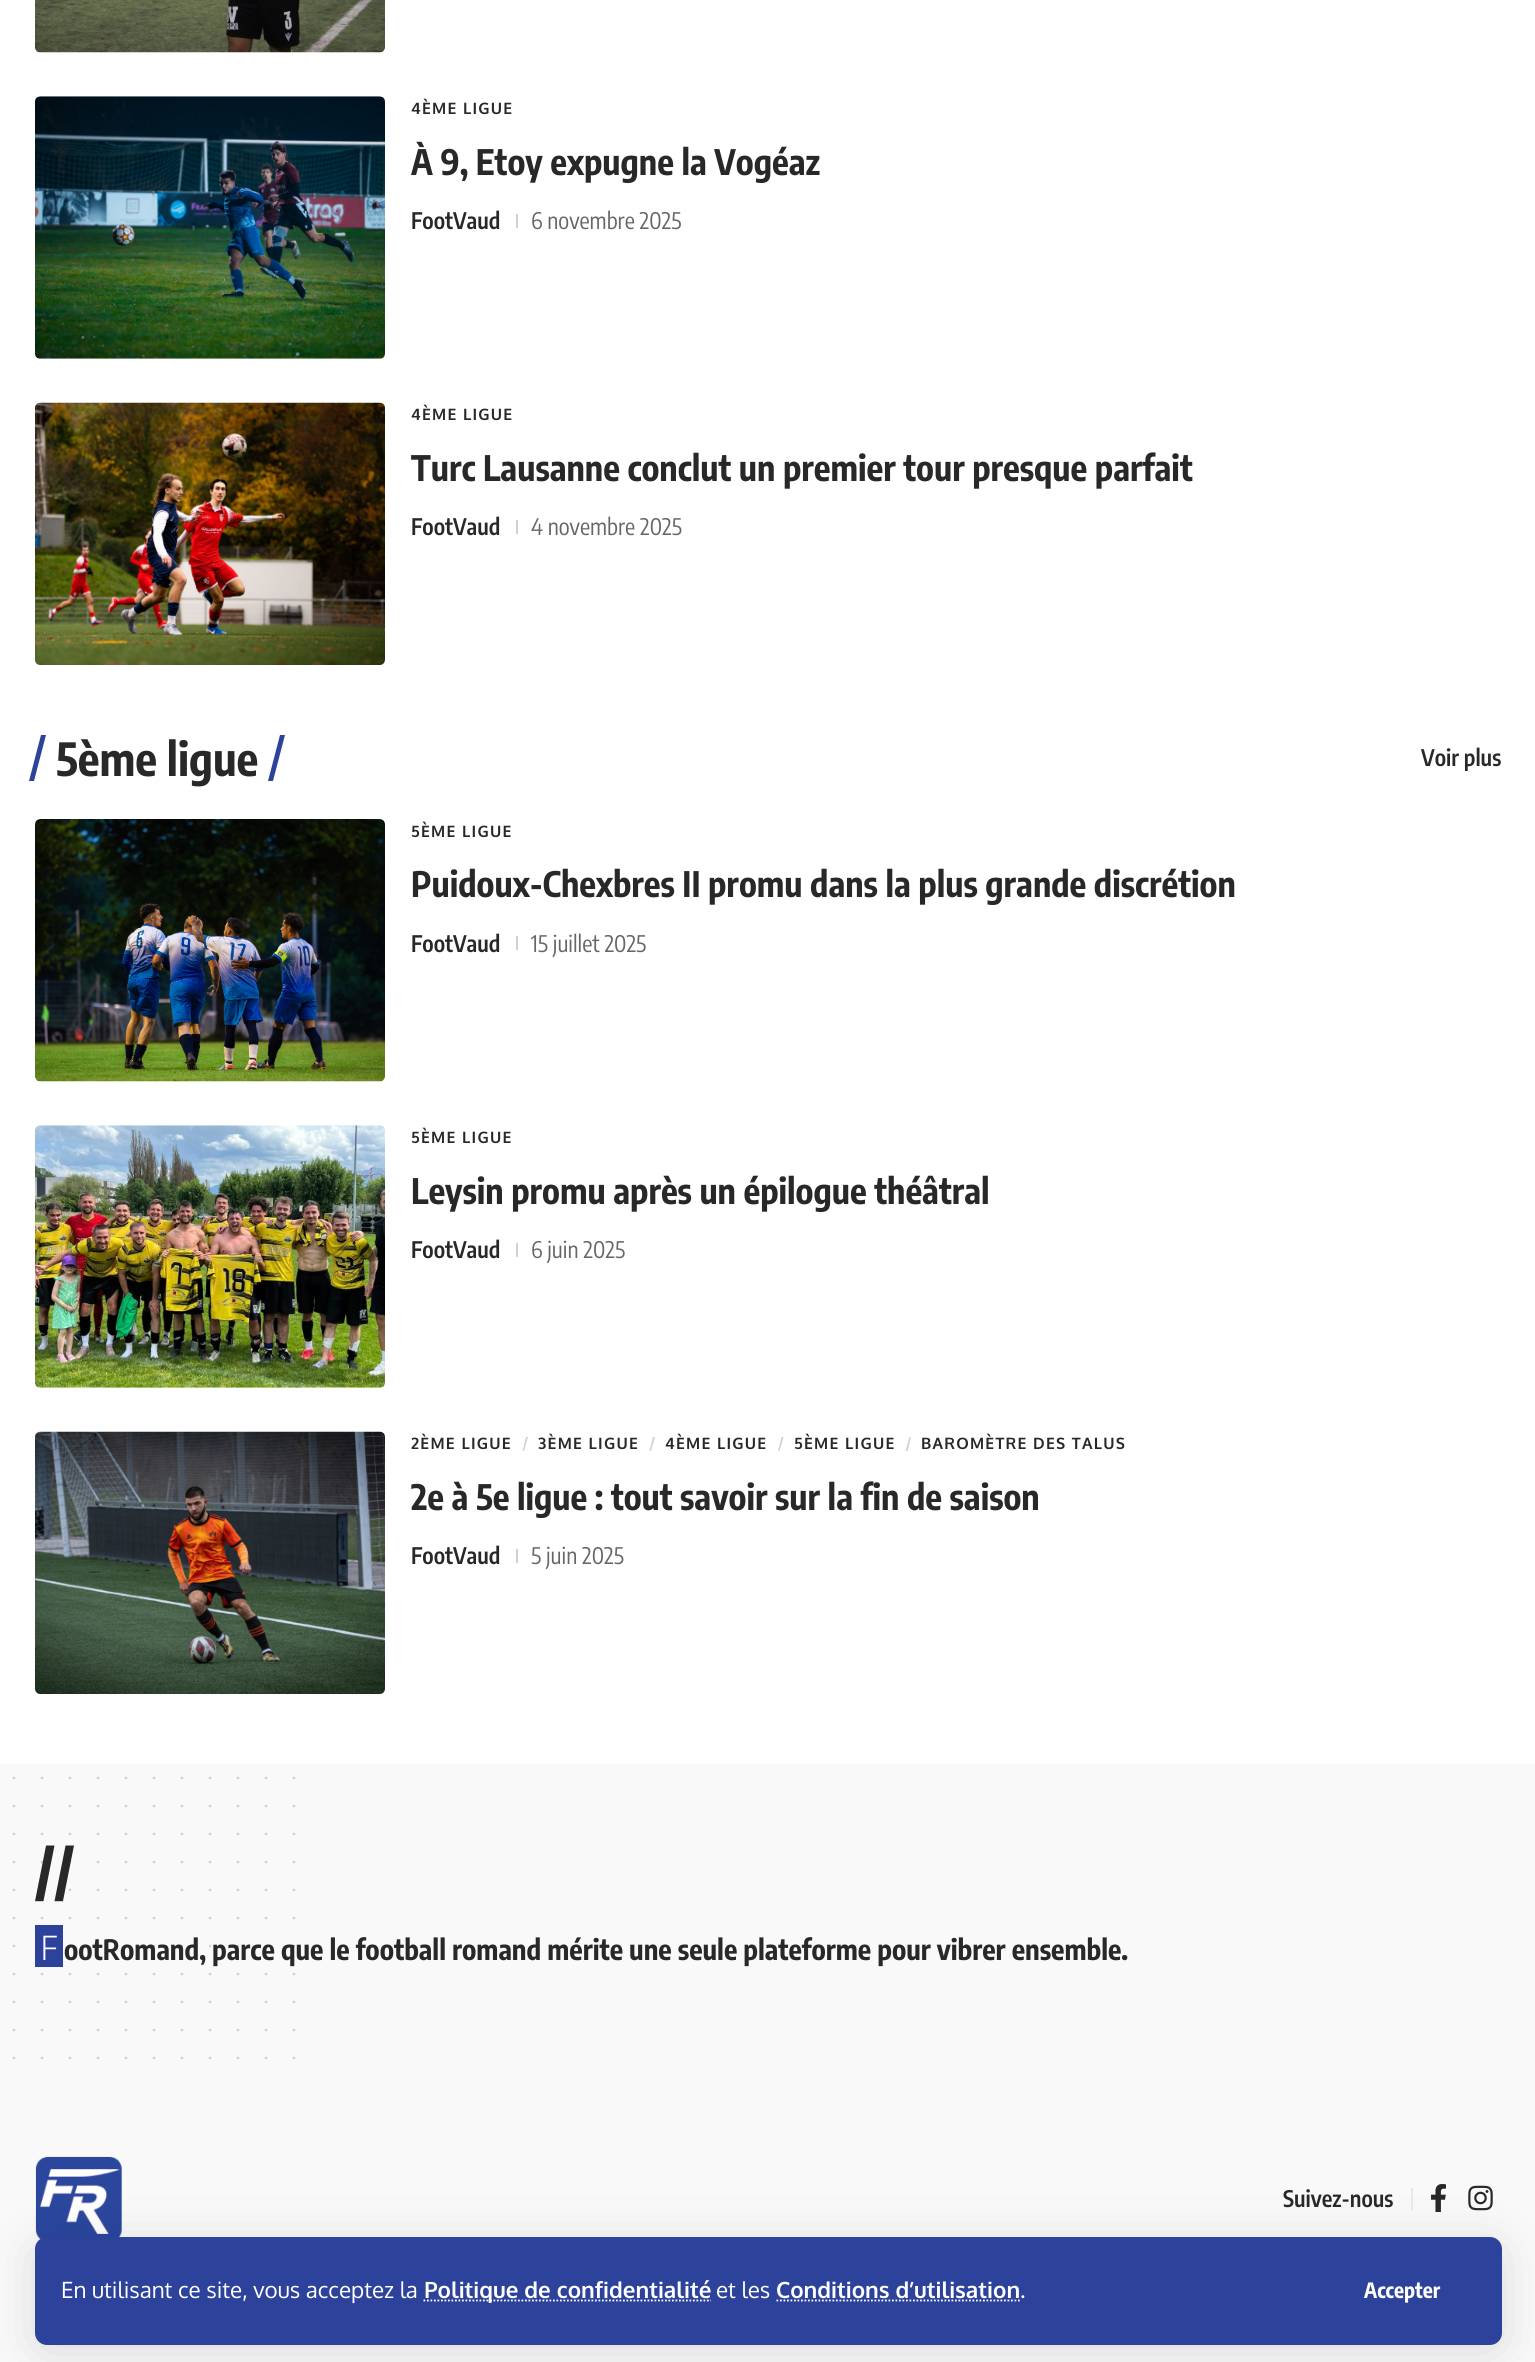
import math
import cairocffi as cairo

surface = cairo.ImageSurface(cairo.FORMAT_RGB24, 1535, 2362)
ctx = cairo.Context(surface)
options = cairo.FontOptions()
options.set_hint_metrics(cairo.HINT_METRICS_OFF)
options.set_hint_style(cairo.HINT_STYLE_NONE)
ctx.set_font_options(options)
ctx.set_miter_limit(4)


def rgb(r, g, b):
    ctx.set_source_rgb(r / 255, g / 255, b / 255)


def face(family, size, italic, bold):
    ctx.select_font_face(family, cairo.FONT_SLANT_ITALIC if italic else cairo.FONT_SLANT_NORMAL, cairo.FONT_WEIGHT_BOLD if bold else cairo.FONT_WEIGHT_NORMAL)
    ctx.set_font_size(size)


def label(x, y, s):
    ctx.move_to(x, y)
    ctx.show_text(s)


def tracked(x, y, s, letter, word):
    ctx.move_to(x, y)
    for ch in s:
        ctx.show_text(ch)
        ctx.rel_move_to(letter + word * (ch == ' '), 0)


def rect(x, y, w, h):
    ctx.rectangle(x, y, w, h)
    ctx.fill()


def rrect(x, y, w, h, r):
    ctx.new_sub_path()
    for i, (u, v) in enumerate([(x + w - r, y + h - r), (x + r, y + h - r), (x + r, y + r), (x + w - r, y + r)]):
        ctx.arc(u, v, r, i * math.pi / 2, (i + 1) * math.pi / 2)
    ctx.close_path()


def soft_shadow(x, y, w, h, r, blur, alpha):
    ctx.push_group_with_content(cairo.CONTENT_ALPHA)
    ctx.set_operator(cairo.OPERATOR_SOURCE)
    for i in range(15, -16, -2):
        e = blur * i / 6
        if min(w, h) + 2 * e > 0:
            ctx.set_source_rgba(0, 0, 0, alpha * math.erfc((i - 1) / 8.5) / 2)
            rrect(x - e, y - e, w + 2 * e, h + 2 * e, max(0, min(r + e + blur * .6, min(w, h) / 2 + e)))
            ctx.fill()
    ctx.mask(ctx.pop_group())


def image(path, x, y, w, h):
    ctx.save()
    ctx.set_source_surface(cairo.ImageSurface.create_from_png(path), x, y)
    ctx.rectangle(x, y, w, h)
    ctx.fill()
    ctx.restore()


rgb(255, 255, 255)
ctx.paint()
image('image0.png', 35, 0, 350, 53)
image('image1.png', 35, 96, 350, 263)
face('Oxygen', 15.75, 0, 1)
rgb(40, 40, 40)
tracked(411, 114, '4ÈME LIGUE', 1.25, 0)
face('Encode Sans Condensed', 35, 0, 1)
label(411, 175, 'À 9, Etoy expugne la Vogéaz')
face('Encode Sans Condensed SemiBold', 22.75, 0, 0)
label(411, 229, 'FootVaud')
rgb(209, 209, 209)
rect(516, 214, 2, 14)
face('Encode Sans Condensed', 22.75, 0, 0)
rgb(102, 102, 102)
label(531, 229, '6 novembre 2025')
image('image2.png', 35, 402, 350, 263)
face('Oxygen', 15.75, 0, 1)
rgb(40, 40, 40)
tracked(411, 420, '4ÈME LIGUE', 1.25, 0)
face('Encode Sans Condensed', 35, 0, 1)
label(411, 481, 'Turc Lausanne conclut un premier tour presque parfait')
face('Encode Sans Condensed SemiBold', 22.75, 0, 0)
label(411, 535, 'FootVaud')
rgb(209, 209, 209)
rect(516, 520, 2, 14)
face('Encode Sans Condensed', 22.75, 0, 0)
rgb(102, 102, 102)
label(531, 535, '4 novembre 2025')
rgb(45, 67, 155)
ctx.new_path()
ctx.move_to(280, 735)
ctx.line_to(285, 735)
ctx.line_to(273, 781)
ctx.line_to(268, 781)
ctx.close_path()
ctx.fill()
ctx.new_path()
ctx.move_to(41, 735)
ctx.line_to(46, 735)
ctx.line_to(34, 781)
ctx.line_to(29, 781)
ctx.close_path()
ctx.fill()
face('Encode Sans Condensed', 45.5, 0, 1)
rgb(40, 40, 40)
label(56, 776, '5ème ligue')
face('Encode Sans Condensed SemiBold', 22.75, 0, 0)
label(1421, 766, 'Voir plus')
image('image3.png', 35, 819, 350, 263)
face('Oxygen', 15.75, 0, 1)
tracked(411, 837, '5ÈME LIGUE', 1.25, 0)
face('Encode Sans Condensed', 35, 0, 1)
label(411, 897, 'Puidoux-Chexbres II promu dans la plus grande discrétion')
face('Encode Sans Condensed SemiBold', 22.75, 0, 0)
label(411, 952, 'FootVaud')
rgb(209, 209, 209)
rect(516, 936, 2, 14)
face('Encode Sans Condensed', 22.75, 0, 0)
rgb(102, 102, 102)
label(531, 952, '15 juillet 2025')
image('image4.png', 35, 1125, 350, 263)
face('Oxygen', 15.75, 0, 1)
rgb(40, 40, 40)
tracked(411, 1143, '5ÈME LIGUE', 1.25, 0)
face('Encode Sans Condensed', 35, 0, 1)
label(411, 1204, 'Leysin promu après un épilogue théâtral')
face('Encode Sans Condensed SemiBold', 22.75, 0, 0)
label(411, 1258, 'FootVaud')
rgb(209, 209, 209)
rect(516, 1243, 2, 14)
face('Encode Sans Condensed', 22.75, 0, 0)
rgb(102, 102, 102)
label(531, 1258, '6 juin 2025')
image('image5.png', 35, 1431, 350, 263)
face('Oxygen', 15.75, 0, 1)
rgb(40, 40, 40)
tracked(411, 1449, '2ÈME LIGUE', 1.25, 0)
rgb(209, 209, 209)
ctx.new_path()
ctx.move_to(526, 1437)
ctx.line_to(528, 1437)
ctx.line_to(524, 1451)
ctx.line_to(522.5, 1451)
ctx.close_path()
ctx.fill()
rgb(40, 40, 40)
tracked(538, 1449, '3ÈME LIGUE', 1.25, 0)
rgb(209, 209, 209)
ctx.new_path()
ctx.move_to(653, 1437)
ctx.line_to(655, 1437)
ctx.line_to(651, 1451)
ctx.line_to(649.5, 1451)
ctx.close_path()
ctx.fill()
rgb(40, 40, 40)
tracked(665, 1449, '4ÈME LIGUE', 1.25, 0)
rgb(209, 209, 209)
ctx.new_path()
ctx.move_to(781.5, 1437)
ctx.line_to(783.5, 1437)
ctx.line_to(779.5, 1451)
ctx.line_to(778, 1451)
ctx.close_path()
ctx.fill()
rgb(40, 40, 40)
tracked(794, 1449, '5ÈME LIGUE', 1.25, 0)
rgb(209, 209, 209)
ctx.new_path()
ctx.move_to(909.5, 1437)
ctx.line_to(911, 1437)
ctx.line_to(907.5, 1451)
ctx.line_to(905.5, 1451)
ctx.close_path()
ctx.fill()
rgb(40, 40, 40)
tracked(921, 1449, 'BAROMÈTRE DES TALUS', 1.25, 0)
face('Encode Sans Condensed', 35, 0, 1)
label(411, 1510, '2e à 5e ligue : tout savoir sur la fin de saison')
face('Encode Sans Condensed SemiBold', 22.75, 0, 0)
label(411, 1564, 'FootVaud')
rgb(209, 209, 209)
rect(516, 1549, 2, 14)
face('Encode Sans Condensed', 22.75, 0, 0)
rgb(102, 102, 102)
label(531, 1564, '5 juin 2025')
rgb(249, 249, 249)
rect(0, 1764, 1535, 598)
ctx.new_path()
ctx.move_to(14, 1778)
ctx.line_to(294.3, 1778)
rgb(207, 207, 207)
ctx.set_line_width(2.6)
ctx.set_line_cap(cairo.LINE_CAP_ROUND)
ctx.set_dash([0, 28])
ctx.stroke()
ctx.new_path()
ctx.move_to(14, 1806)
ctx.line_to(294.3, 1806)
ctx.stroke()
ctx.new_path()
ctx.move_to(14, 1834)
ctx.line_to(294.3, 1834)
ctx.stroke()
ctx.new_path()
ctx.move_to(14, 1862)
ctx.line_to(294.3, 1862)
ctx.stroke()
ctx.new_path()
ctx.move_to(14, 1890)
ctx.line_to(294.3, 1890)
ctx.stroke()
ctx.new_path()
ctx.move_to(14, 1918)
ctx.line_to(294.3, 1918)
ctx.stroke()
ctx.new_path()
ctx.move_to(14, 1946)
ctx.line_to(294.3, 1946)
ctx.stroke()
ctx.new_path()
ctx.move_to(14, 1974)
ctx.line_to(294.3, 1974)
ctx.stroke()
ctx.new_path()
ctx.move_to(14, 2002)
ctx.line_to(294.3, 2002)
ctx.stroke()
ctx.new_path()
ctx.move_to(14, 2030)
ctx.line_to(294.3, 2030)
ctx.stroke()
ctx.new_path()
ctx.move_to(14, 2058)
ctx.line_to(294.3, 2058)
ctx.stroke()
face('Encode Sans Condensed', 60, 0, 1)
rgb(40, 40, 40)
label(35, 1894, '//')
rgb(45, 67, 155)
rect(35, 1925, 28, 42)
face('Noto Sans Light', 34, 0, 0)
rgb(255, 255, 255)
label(40, 1960, 'F')
face('Encode Sans Condensed', 28, 0, 1)
rgb(40, 40, 40)
label(64, 1960, 'ootRomand, parce que le football romand mérite une seule plateforme pour vibrer ensemble.')
image('image6.png', 35, 2156, 87, 84)
rgb(232, 232, 232)
rect(1411, 2188, 2, 22)
face('Encode Sans Condensed SemiBold', 22.75, 0, 0)
rgb(40, 40, 40)
label(1283, 2207, 'Suivez-nous')
image('image7.png', 1431, 2184, 15, 28)
image('image8.png', 1468, 2185, 25, 26)
rgb(0, 0, 0)
soft_shadow(35, 2244, 1467, 108, 12, 26, 0.12)
rgb(45, 67, 155)
rrect(35, 2237, 1467, 108, 12)
ctx.fill()
face('Oxygen', 22.4, 0, 0)
rgb(255, 255, 255)
label(61, 2298, 'En utilisant ce site, vous acceptez la')
ctx.new_path()
ctx.move_to(423.5, 2300.5)
ctx.line_to(711, 2300.5)
ctx.set_line_width(1.8)
ctx.set_line_cap(cairo.LINE_CAP_BUTT)
ctx.set_dash([1.75, 1.75])
ctx.stroke()
face('Oxygen', 22.4, 0, 1)
label(424, 2298, 'Politique de confidentialité')
face('Oxygen', 22.4, 0, 0)
label(716, 2298, 'et les')
face('Oxygen', 22.4, 0, 1)
label(776, 2298, 'Conditions d’utilisation')
ctx.new_path()
ctx.move_to(776.5, 2300.5)
ctx.line_to(1020.5, 2300.5)
ctx.stroke()
face('Oxygen', 22.4, 0, 0)
label(1020, 2298, '.')
face('Encode Sans Condensed', 21, 0, 1)
label(1364, 2298, 'Accepter')
surface.write_to_png('render.png')
